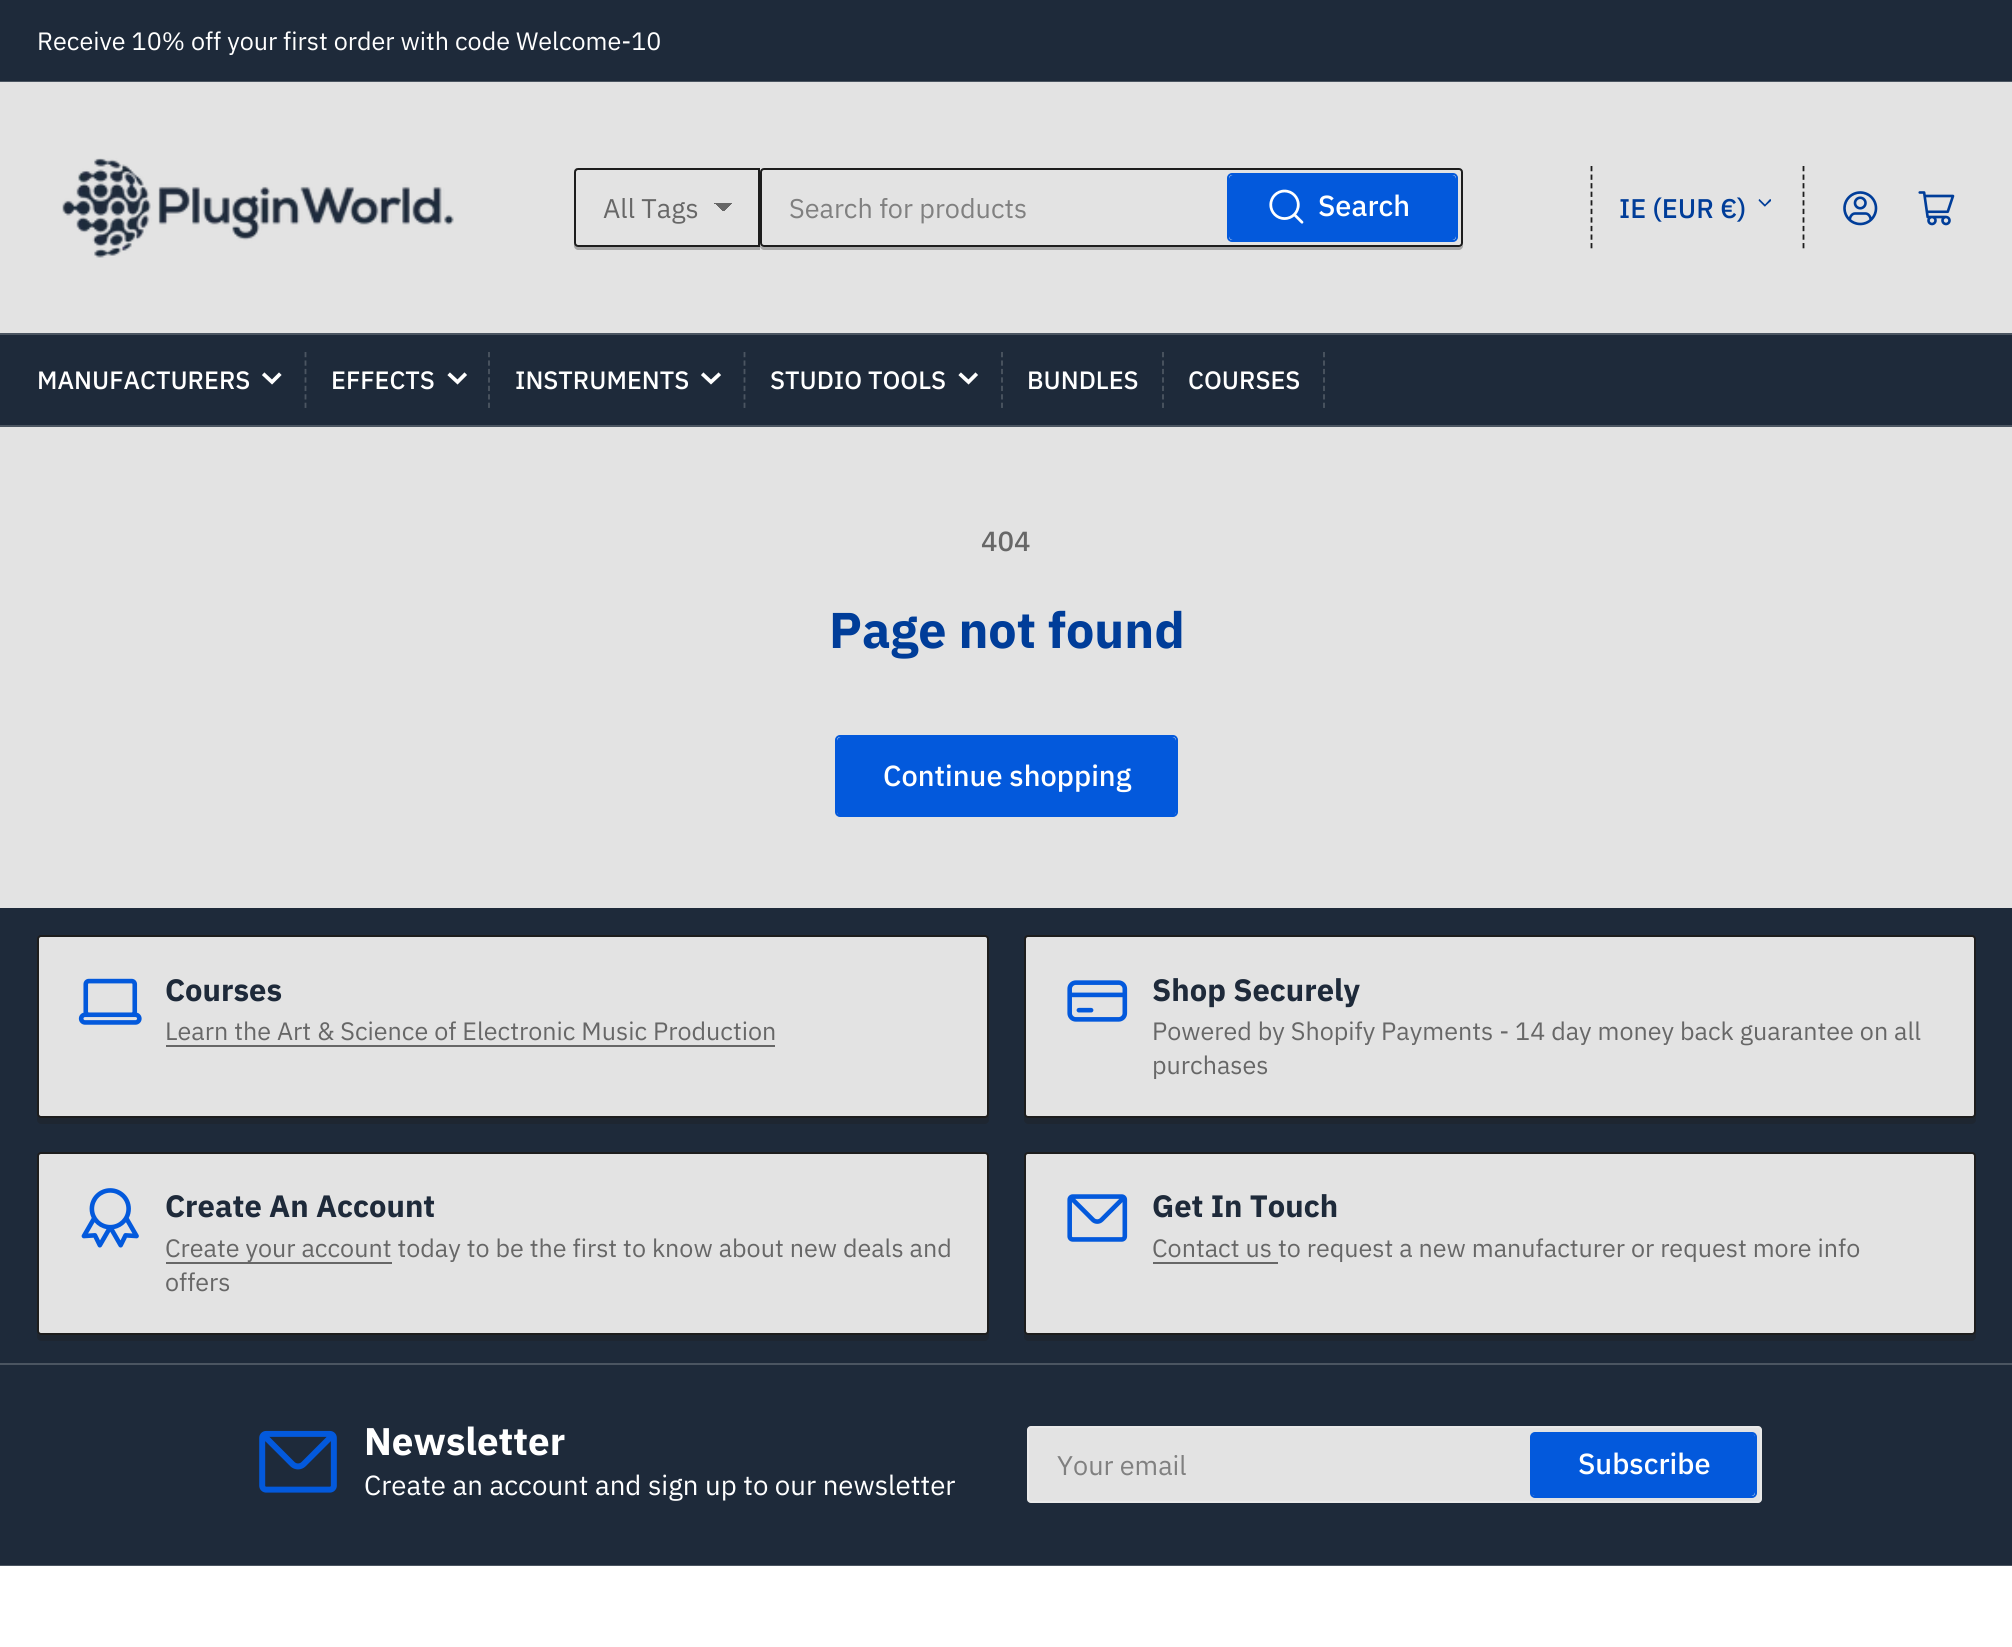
import math
import cairocffi as cairo

surface = cairo.ImageSurface(cairo.FORMAT_RGB24, 2012, 1647)
ctx = cairo.Context(surface)
options = cairo.FontOptions()
options.set_hint_metrics(cairo.HINT_METRICS_OFF)
options.set_hint_style(cairo.HINT_STYLE_NONE)
ctx.set_font_options(options)
ctx.set_miter_limit(4)


def rgb(r, g, b):
    ctx.set_source_rgb(r / 255, g / 255, b / 255)


def face(family, size, italic, bold):
    ctx.select_font_face(family, cairo.FONT_SLANT_ITALIC if italic else cairo.FONT_SLANT_NORMAL, cairo.FONT_WEIGHT_BOLD if bold else cairo.FONT_WEIGHT_NORMAL)
    ctx.set_font_size(size)


def label(x, y, s):
    ctx.move_to(x, y)
    ctx.show_text(s)


def rect(x, y, w, h):
    ctx.rectangle(x, y, w, h)
    ctx.fill()


def rrect(x, y, w, h, r):
    ctx.new_sub_path()
    for i, (u, v) in enumerate([(x + w - r, y + h - r), (x + r, y + h - r), (x + r, y + r), (x + w - r, y + r)]):
        ctx.arc(u, v, r, i * math.pi / 2, (i + 1) * math.pi / 2)
    ctx.close_path()


def image(path, x, y, w, h):
    ctx.save()
    ctx.set_source_surface(cairo.ImageSurface.create_from_png(path), x, y)
    ctx.rectangle(x, y, w, h)
    ctx.fill()
    ctx.restore()


rgb(227, 227, 227)
ctx.paint()
rgb(30, 42, 58)
rect(0, 0, 2012, 81)
rgb(75, 85, 97)
rect(0, 81, 2012, 1)
face('IBM Plex Sans', 25.1, 0, 0)
rgb(255, 255, 255)
label(37, 50, 'Receive 10% off your first order with code Welcome-10')
image('image0.png', 62, 158, 392, 100)
rrect(575, 169, 184, 77, 3)
rgb(29, 29, 29)
ctx.stroke()
ctx.set_source_rgba(0.114, 0.114, 0.114, 0.3)
ctx.new_path()
ctx.move_to(574, 243)
ctx.line_to(574, 246)
ctx.curve_to(574, 248, 576, 250, 578, 250)
ctx.line_to(760, 250)
ctx.line_to(760, 172)
ctx.line_to(760, 247)
ctx.line_to(578, 247)
ctx.curve_to(576, 247, 574, 245, 574, 243)
ctx.close_path()
ctx.fill()
rgb(227, 227, 227)
ctx.new_path()
ctx.move_to(578, 168)
ctx.line_to(760, 168)
ctx.line_to(760, 247)
ctx.line_to(578, 247)
ctx.curve_to(576, 247, 574, 245, 574, 243)
ctx.line_to(574, 172)
ctx.curve_to(574, 170, 576, 168, 578, 168)
ctx.close_path()
ctx.fill()
gradient = cairo.LinearGradient(723, 203, 732, 212)
gradient.add_color_stop_rgba(0.5, 0.404, 0.404, 0.404, 1)
gradient.add_color_stop_rgba(0.5, 0.89, 0.89, 0.89, 1)
ctx.set_source(gradient)
rect(723, 203, 9, 8)
gradient = cairo.LinearGradient(714, 212, 723, 203)
gradient.add_color_stop_rgba(0.5, 0.89, 0.89, 0.89, 1)
gradient.add_color_stop_rgba(0.5, 0.404, 0.404, 0.404, 1)
ctx.set_source(gradient)
rect(714, 203, 9, 8)
ctx.new_path()
ctx.move_to(578, 169)
ctx.line_to(759, 169)
ctx.line_to(759, 246)
ctx.line_to(578, 246)
ctx.curve_to(576.5, 246, 575, 244.5, 575, 243)
ctx.line_to(575, 172)
ctx.curve_to(575, 170.5, 576.5, 169, 578, 169)
ctx.close_path()
rgb(29, 29, 29)
ctx.stroke()
face('IBM Plex Sans', 27, 0, 0)
rgb(103, 103, 103)
label(603, 218, 'All Tags')
rgb(168, 168, 168)
ctx.new_path()
ctx.move_to(760, 245)
ctx.line_to(760, 246)
ctx.curve_to(760, 248, 762, 250, 764, 250)
ctx.line_to(1459, 250)
ctx.curve_to(1461, 250, 1463, 248, 1463, 246)
ctx.line_to(1463, 243)
ctx.line_to(1462, 246)
ctx.line_to(1460, 247)
ctx.line_to(762, 247)
ctx.close_path()
ctx.fill()
rgb(227, 227, 227)
rrect(761, 169, 701, 77, 3)
ctx.fill_preserve()
rgb(29, 29, 29)
ctx.stroke()
rgb(128, 128, 128)
label(789, 218, 'Search for products')
rrect(1228, 174, 229, 67, 4)
rgb(3, 89, 220)
ctx.stroke()
rrect(1229, 175, 227, 65, 4)
ctx.fill()
image('image1.png', 1269, 189, 35, 35)
face('IBM Plex Sans Medium', 29, 0, 0)
rgb(255, 255, 255)
label(1318, 216, 'Search')
ctx.new_path()
ctx.move_to(1803.5, 166)
ctx.line_to(1803.5, 248.5)
rgb(29, 29, 29)
ctx.set_line_width(1.8)
ctx.set_dash([5.25, 3.31])
ctx.stroke()
ctx.new_path()
ctx.move_to(1591.5, 166)
ctx.line_to(1591.5, 248.5)
ctx.stroke()
face('IBM Plex Sans Medium', 27, 0, 0)
rgb(0, 61, 153)
label(1619, 218, 'IE (EUR €)')
ctx.new_path()
ctx.move_to(1760, 199.5)
ctx.line_to(1765.5, 205)
ctx.curve_to(1765.5, 205, 1765.5, 205.5, 1765.5, 206)
ctx.curve_to(1765, 206.5, 1764.5, 206.5, 1764, 206)
ctx.line_to(1759, 201)
ctx.curve_to(1758.5, 200.5, 1758.5, 200, 1759, 199.5)
ctx.curve_to(1759, 199, 1760, 199, 1760, 199.5)
ctx.close_path()
ctx.fill()
ctx.new_path()
ctx.move_to(1764.5, 205)
ctx.line_to(1769.5, 199.5)
ctx.curve_to(1770, 199, 1770.5, 199, 1771, 199.5)
ctx.curve_to(1771, 200, 1771, 200.5, 1771, 201)
ctx.line_to(1765.5, 206)
ctx.curve_to(1765.5, 206.5, 1764.5, 206.5, 1764.5, 206)
ctx.curve_to(1764, 205.5, 1764, 205, 1764.5, 205)
ctx.close_path()
ctx.fill()
image('image2.png', 1843, 191, 35, 35)
image('image3.png', 1918, 191, 37, 35)
rgb(30, 42, 58)
rect(0, 335, 2012, 90)
rgb(75, 85, 97)
rect(0, 333, 2012, 2)
rect(0, 425, 2012, 2)
face('IBM Plex Sans Medium', 25.1, 0, 0)
rgb(255, 255, 255)
label(37, 389, 'MANUFACTURERS')
ctx.new_path()
ctx.move_to(279, 375)
ctx.line_to(272, 382)
ctx.line_to(264.5, 375)
ctx.set_line_width(3.7)
ctx.set_line_cap(cairo.LINE_CAP_SQUARE)
ctx.set_dash([])
ctx.stroke()
ctx.new_path()
ctx.move_to(305.5, 352)
ctx.line_to(305.5, 408)
rgb(75, 85, 97)
ctx.set_line_width(1.8)
ctx.set_line_cap(cairo.LINE_CAP_BUTT)
ctx.set_dash([5.25, 3.2])
ctx.stroke()
rgb(255, 255, 255)
label(331, 389, 'EFFECTS')
ctx.new_path()
ctx.move_to(464.5, 375)
ctx.line_to(457.5, 382)
ctx.line_to(450, 375)
ctx.set_line_width(3.7)
ctx.set_line_cap(cairo.LINE_CAP_SQUARE)
ctx.set_dash([])
ctx.stroke()
ctx.new_path()
ctx.move_to(489, 352)
ctx.line_to(489, 408)
rgb(75, 85, 97)
ctx.set_line_width(1.8)
ctx.set_line_cap(cairo.LINE_CAP_BUTT)
ctx.set_dash([5.25, 3.2])
ctx.stroke()
rgb(255, 255, 255)
label(515, 389, 'INSTRUMENTS')
ctx.new_path()
ctx.move_to(718.5, 375)
ctx.line_to(711, 382)
ctx.line_to(703.5, 375)
ctx.set_line_width(3.7)
ctx.set_line_cap(cairo.LINE_CAP_SQUARE)
ctx.set_dash([])
ctx.stroke()
ctx.new_path()
ctx.move_to(744.5, 352)
ctx.line_to(744.5, 408)
rgb(75, 85, 97)
ctx.set_line_width(1.8)
ctx.set_line_cap(cairo.LINE_CAP_BUTT)
ctx.set_dash([5.25, 3.2])
ctx.stroke()
rgb(255, 255, 255)
label(770, 389, 'STUDIO TOOLS')
ctx.new_path()
ctx.move_to(975.5, 375)
ctx.line_to(968.5, 382)
ctx.line_to(961, 375)
ctx.set_line_width(3.7)
ctx.set_line_cap(cairo.LINE_CAP_SQUARE)
ctx.set_dash([])
ctx.stroke()
ctx.new_path()
ctx.move_to(1002, 352)
ctx.line_to(1002, 408)
rgb(75, 85, 97)
ctx.set_line_width(1.8)
ctx.set_line_cap(cairo.LINE_CAP_BUTT)
ctx.set_dash([5.25, 3.2])
ctx.stroke()
rgb(255, 255, 255)
label(1027, 389, 'BUNDLES')
ctx.new_path()
ctx.move_to(1163, 352)
ctx.line_to(1163, 408)
rgb(75, 85, 97)
ctx.stroke()
rgb(255, 255, 255)
label(1188, 389, 'COURSES')
ctx.new_path()
ctx.move_to(1324, 352)
ctx.line_to(1324, 408)
rgb(75, 85, 97)
ctx.stroke()
face('IBM Plex Sans Medium', 27.6, 0, 0)
rgb(103, 103, 103)
label(981, 551, '404')
face('IBM Plex Sans', 50.25, 0, 1)
rgb(0, 61, 153)
label(829, 648, 'Page not found')
rrect(836, 736, 341, 80, 4)
rgb(3, 89, 220)
ctx.set_line_width(2)
ctx.set_dash([])
ctx.stroke()
rrect(837, 737, 339, 79, 4)
ctx.fill()
face('IBM Plex Sans Medium', 29, 0, 0)
rgb(255, 255, 255)
label(883, 786, 'Continue shopping')
rgb(30, 42, 58)
rect(0, 908, 2012, 455)
rgb(30, 38, 49)
ctx.new_path()
ctx.move_to(37, 1116)
ctx.line_to(37, 1120)
ctx.curve_to(37, 1122, 39, 1124, 41, 1124)
ctx.line_to(985, 1124)
ctx.curve_to(987, 1124, 989, 1122, 989, 1120)
ctx.line_to(989, 943)
ctx.line_to(989, 1115)
ctx.curve_to(989, 1117, 987, 1118, 985, 1118)
ctx.line_to(40, 1118)
ctx.curve_to(39, 1118, 38, 1117, 37, 1116)
ctx.close_path()
ctx.fill()
rgb(227, 227, 227)
rrect(38, 936, 950, 181, 3)
ctx.fill_preserve()
rgb(29, 29, 29)
ctx.stroke()
image('image4.png', 78, 978, 64, 47)
face('IBM Plex Sans', 30.9, 0, 1)
rgb(30, 42, 58)
label(165, 1001, 'Courses')
face('IBM Plex Sans', 25.1, 0, 0)
rgb(103, 103, 103)
label(165, 1040, 'Learn the Art & Science of Electronic Music Production')
rect(166, 1045, 609, 2)
rgb(30, 38, 49)
ctx.new_path()
ctx.move_to(1024, 1116)
ctx.line_to(1024, 1120)
ctx.curve_to(1024, 1122, 1026, 1124, 1028, 1124)
ctx.line_to(1972, 1124)
ctx.curve_to(1974, 1124, 1976, 1122, 1976, 1120)
ctx.line_to(1976, 943)
ctx.line_to(1976, 1115)
ctx.curve_to(1976, 1117, 1974, 1118, 1972, 1118)
ctx.line_to(1027, 1118)
ctx.curve_to(1026, 1118, 1025, 1117, 1024, 1116)
ctx.close_path()
ctx.fill()
rgb(227, 227, 227)
rrect(1025, 936, 950, 181, 3)
ctx.fill_preserve()
rgb(29, 29, 29)
ctx.stroke()
image('image5.png', 1067, 980, 61, 42)
face('IBM Plex Sans', 30.9, 0, 1)
rgb(30, 42, 58)
label(1152, 1001, 'Shop Securely')
face('IBM Plex Sans', 25.1, 0, 0)
rgb(103, 103, 103)
label(1152, 1040, 'Powered by Shopify Payments - 14 day money back guarantee on all')
label(1152, 1074, 'purchases')
rgb(30, 38, 49)
ctx.new_path()
ctx.move_to(37, 1333)
ctx.line_to(37, 1337)
ctx.curve_to(37, 1339, 39, 1341, 41, 1341)
ctx.line_to(985, 1341)
ctx.curve_to(987, 1341, 989, 1339, 989, 1337)
ctx.line_to(989, 1160)
ctx.line_to(989, 1332)
ctx.curve_to(989, 1334, 987, 1335, 985, 1335)
ctx.line_to(40, 1335)
ctx.curve_to(39, 1335, 38, 1334, 37, 1333)
ctx.close_path()
ctx.fill()
rgb(227, 227, 227)
rrect(38, 1153, 950, 181, 3)
ctx.fill_preserve()
rgb(29, 29, 29)
ctx.stroke()
image('image6.png', 81, 1188, 58, 60)
face('IBM Plex Sans', 30.9, 0, 1)
rgb(30, 42, 58)
label(165, 1217, 'Create An Account')
face('IBM Plex Sans', 25.1, 0, 0)
rgb(103, 103, 103)
label(165, 1257, 'Create your account today to be the first to know about new deals and')
rect(166, 1262, 226, 2)
label(165, 1291, 'offers')
rgb(30, 38, 49)
ctx.new_path()
ctx.move_to(1024, 1333)
ctx.line_to(1024, 1337)
ctx.curve_to(1024, 1339, 1026, 1341, 1028, 1341)
ctx.line_to(1972, 1341)
ctx.curve_to(1974, 1341, 1976, 1339, 1976, 1337)
ctx.line_to(1976, 1160)
ctx.line_to(1976, 1332)
ctx.curve_to(1976, 1334, 1974, 1335, 1972, 1335)
ctx.line_to(1027, 1335)
ctx.curve_to(1026, 1335, 1025, 1334, 1024, 1333)
ctx.close_path()
ctx.fill()
rgb(227, 227, 227)
rrect(1025, 1153, 950, 181, 3)
ctx.fill_preserve()
rgb(29, 29, 29)
ctx.stroke()
image('image7.png', 1067, 1194, 61, 48)
face('IBM Plex Sans', 30.9, 0, 1)
rgb(30, 42, 58)
label(1152, 1217, 'Get In Touch')
face('IBM Plex Sans', 25.1, 0, 0)
rgb(103, 103, 103)
label(1152, 1257, 'Contact us to request a new manufacturer or request more info')
rect(1153, 1262, 125, 2)
rgb(30, 42, 58)
rect(0, 1365, 2012, 200)
rgb(75, 85, 97)
rect(0, 1565, 2012, 1)
rect(0, 1363, 2012, 2)
image('image8.png', 259, 1430, 78, 63)
face('IBM Plex Sans', 38.5, 0, 1)
rgb(255, 255, 255)
label(364, 1455, 'Newsletter')
face('IBM Plex Sans', 27.6, 0, 0)
label(364, 1495, 'Create an account and sign up to our newsletter')
rgb(227, 227, 227)
rrect(1027, 1426, 735, 77, 4)
ctx.fill()
rrect(1028, 1427, 733, 75, 3)
ctx.set_source_rgba(1, 1, 1, 0.2)
ctx.stroke()
face('IBM Plex Sans', 27, 0, 0)
rgb(128, 128, 128)
label(1057, 1475, 'Your email')
rrect(1531, 1433, 225, 64, 4)
rgb(3, 89, 220)
ctx.stroke()
rrect(1531, 1433, 224, 63, 4)
ctx.fill()
face('IBM Plex Sans Medium', 29, 0, 0)
rgb(255, 255, 255)
label(1578, 1474, 'Subscribe')
rect(0, 1566, 2012, 81)
surface.write_to_png('render.png')
